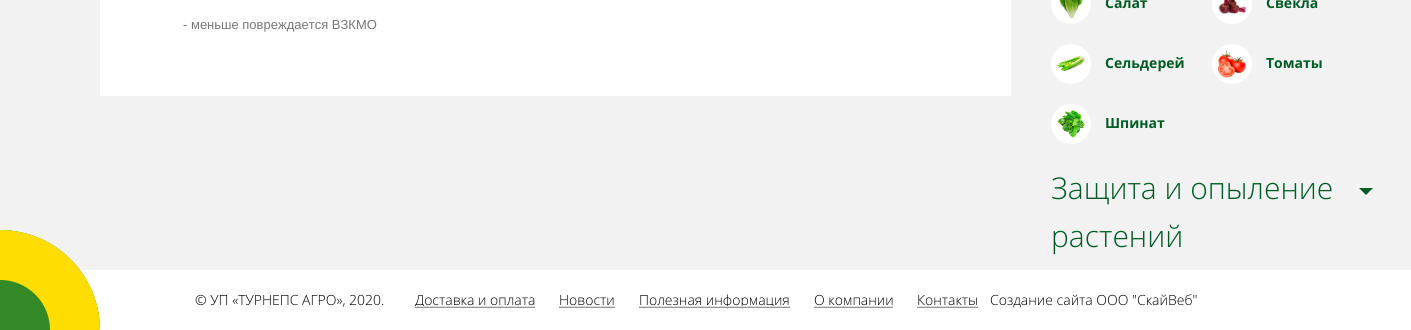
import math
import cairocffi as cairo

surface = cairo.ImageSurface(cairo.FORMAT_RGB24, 1411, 330)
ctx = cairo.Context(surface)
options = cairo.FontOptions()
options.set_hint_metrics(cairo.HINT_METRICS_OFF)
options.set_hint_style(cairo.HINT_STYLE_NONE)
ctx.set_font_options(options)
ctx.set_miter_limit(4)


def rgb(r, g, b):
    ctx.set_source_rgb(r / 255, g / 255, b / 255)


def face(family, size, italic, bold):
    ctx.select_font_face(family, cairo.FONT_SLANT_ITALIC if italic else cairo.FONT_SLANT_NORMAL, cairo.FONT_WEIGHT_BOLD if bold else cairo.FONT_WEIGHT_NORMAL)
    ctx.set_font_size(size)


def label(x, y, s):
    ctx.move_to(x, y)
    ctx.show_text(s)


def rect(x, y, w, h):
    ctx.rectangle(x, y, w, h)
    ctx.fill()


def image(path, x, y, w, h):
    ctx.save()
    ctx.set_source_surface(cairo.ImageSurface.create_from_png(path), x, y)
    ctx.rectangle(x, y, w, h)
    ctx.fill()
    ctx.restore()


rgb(242, 242, 242)
ctx.paint()
rgb(255, 255, 255)
rect(100, 0, 911, 96)
face('Liberation Sans', 13, 0, 0)
rgb(119, 119, 119)
label(183, 29, '- меньше повреждается ВЗКМО')
rgb(255, 255, 255)
ctx.new_path()
ctx.arc(1071, 4, 20, 0, 2 * math.pi)
ctx.fill()
image('image0.png', 1059, 0, 24, 18)
face('Open Sans', 14, 0, 1)
rgb(0, 92, 36)
label(1105, 8, 'Салат')
rgb(255, 255, 255)
ctx.new_path()
ctx.arc(1232, 4, 20, 0, 2 * math.pi)
ctx.fill()
image('image1.png', 1218, 0, 28, 14)
rgb(0, 92, 36)
label(1266, 8, 'Свекла')
rgb(255, 255, 255)
ctx.new_path()
ctx.arc(1071, 64, 20, 0, 2 * math.pi)
ctx.fill()
image('image2.png', 1057, 55, 28, 17)
rgb(0, 92, 36)
label(1105, 68, 'Сельдерей')
rgb(255, 255, 255)
ctx.new_path()
ctx.arc(1232, 64, 20, 0, 2 * math.pi)
ctx.fill()
image('image3.png', 1218, 50, 28, 28)
rgb(0, 92, 36)
label(1266, 68, 'Томаты')
rgb(255, 255, 255)
ctx.new_path()
ctx.arc(1071, 124, 20, 0, 2 * math.pi)
ctx.fill()
image('image4.png', 1057, 110, 28, 28)
rgb(0, 92, 36)
label(1105, 128, 'Шпинат')
face('Open Sans Light', 30, 0, 0)
label(1051, 199, 'Защита и опыление')
ctx.new_path()
ctx.move_to(1359, 188)
ctx.line_to(1373, 188)
ctx.line_to(1366, 195)
ctx.close_path()
ctx.fill()
label(1051, 247, 'растений')
rgb(255, 255, 255)
rect(80, 270, 1331, 60)
rgb(50, 137, 37)
ctx.new_path()
ctx.move_to(0, 230)
ctx.curve_to(55, 230, 100, 275, 100, 330)
ctx.line_to(0, 330)
ctx.close_path()
ctx.fill()
ctx.arc(0, 330, 75, 0, 2 * math.pi)
rgb(255, 221, 0)
ctx.set_line_width(50)
ctx.stroke()
face('Open Sans Light', 14, 0, 0)
rgb(0, 0, 0)
label(195, 305, '© УП «ТУРНЕПС АГРО», 2020.')
label(415, 305, 'Доставка и оплата')
rgb(223, 223, 223)
rect(415, 306, 120, 1)
rgb(149, 149, 149)
rect(415, 307, 120, 1)
rgb(0, 0, 0)
label(559, 305, 'Новости')
rgb(223, 223, 223)
rect(559, 306, 56, 1)
rgb(149, 149, 149)
rect(559, 307, 56, 1)
rgb(0, 0, 0)
label(639, 305, 'Полезная информация')
rgb(223, 223, 223)
rect(639, 306, 151, 1)
rgb(149, 149, 149)
rect(639, 307, 151, 1)
rgb(0, 0, 0)
label(814, 305, 'О компании')
rgb(223, 223, 223)
rect(814, 306, 79, 1)
rgb(149, 149, 149)
rect(814, 307, 79, 1)
rgb(0, 0, 0)
label(917, 305, 'Контакты')
rgb(223, 223, 223)
rect(917, 306, 61, 1)
rgb(149, 149, 149)
rect(917, 307, 61, 1)
rgb(0, 0, 0)
label(990, 305, 'Создание сайта ООО "СкайВеб"')
surface.write_to_png('render.png')
